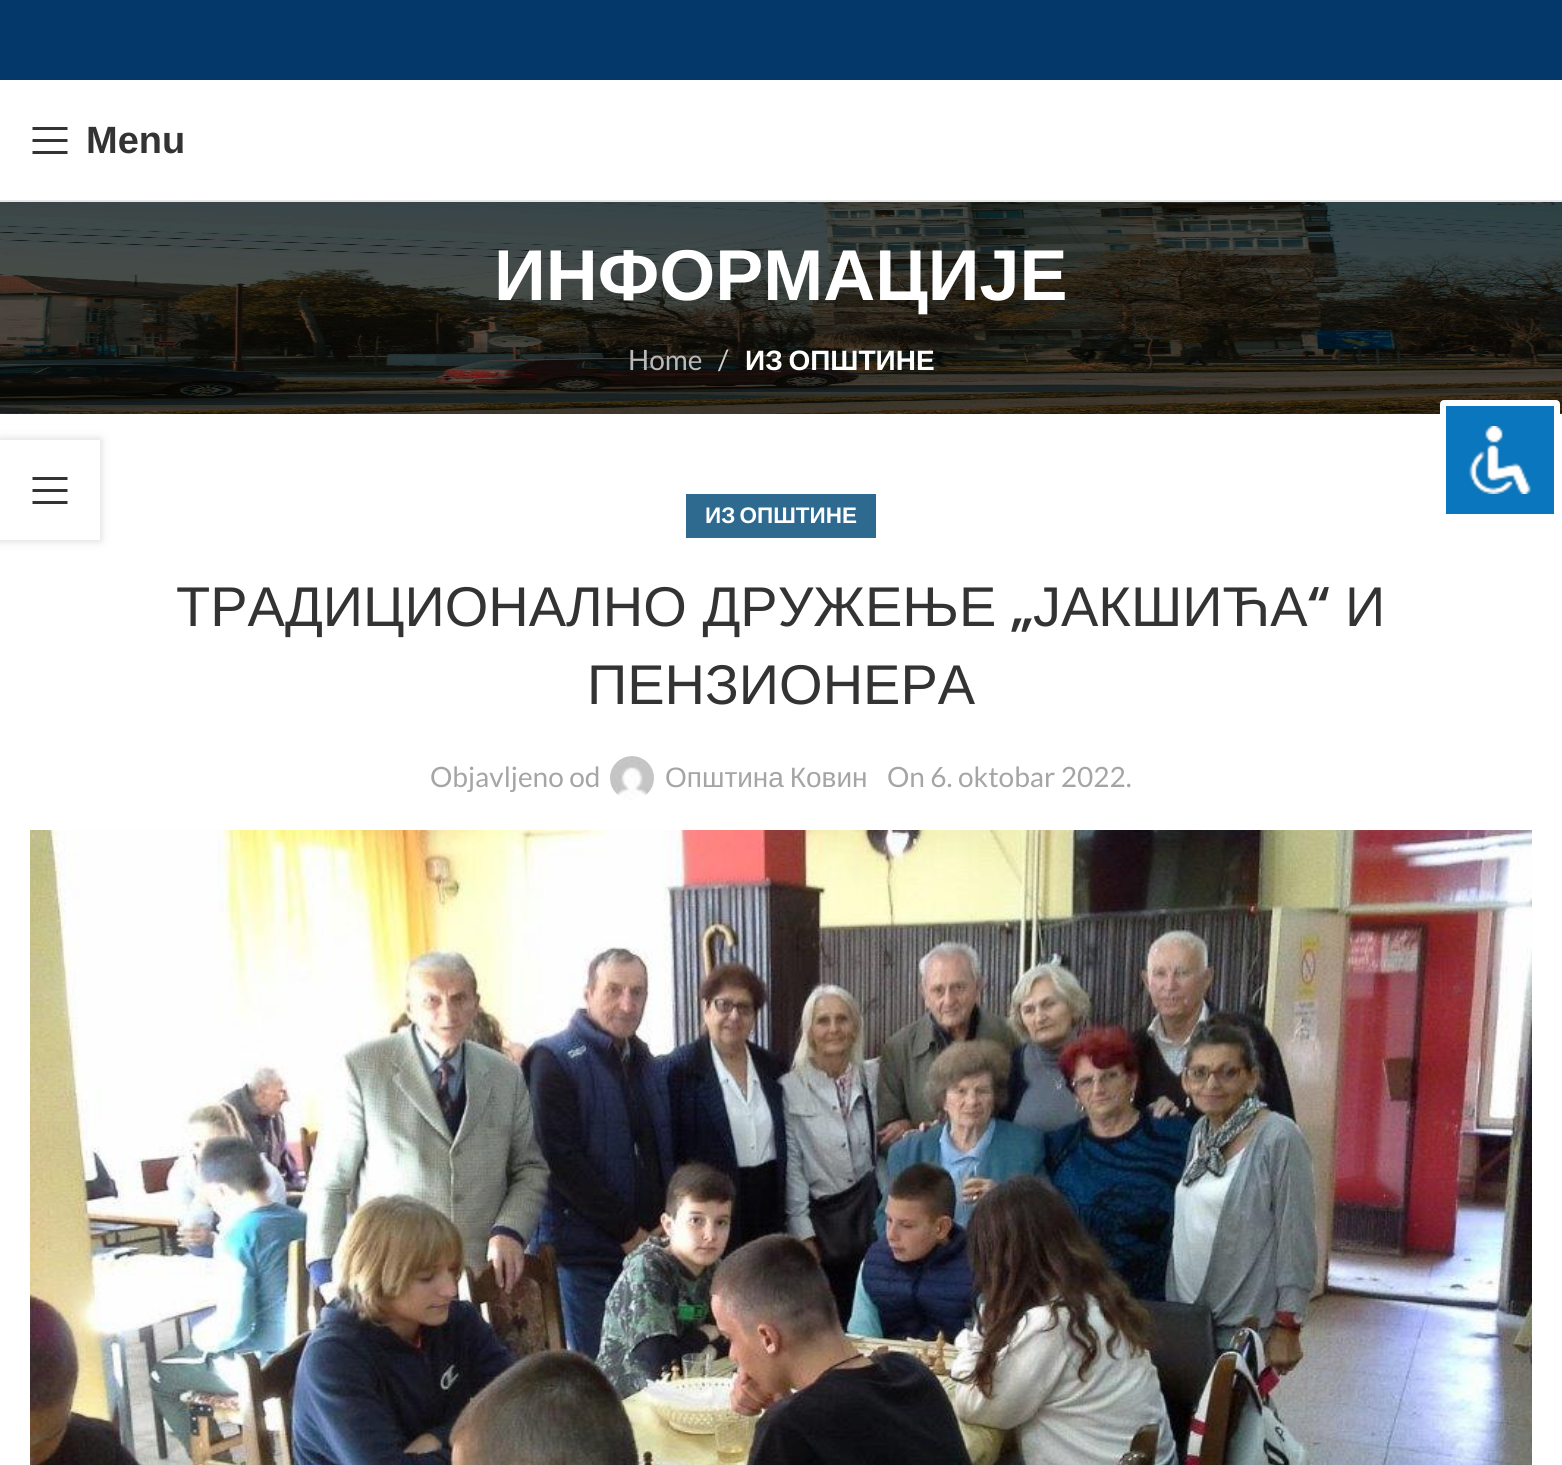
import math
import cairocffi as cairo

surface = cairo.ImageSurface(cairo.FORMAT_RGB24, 1562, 1465)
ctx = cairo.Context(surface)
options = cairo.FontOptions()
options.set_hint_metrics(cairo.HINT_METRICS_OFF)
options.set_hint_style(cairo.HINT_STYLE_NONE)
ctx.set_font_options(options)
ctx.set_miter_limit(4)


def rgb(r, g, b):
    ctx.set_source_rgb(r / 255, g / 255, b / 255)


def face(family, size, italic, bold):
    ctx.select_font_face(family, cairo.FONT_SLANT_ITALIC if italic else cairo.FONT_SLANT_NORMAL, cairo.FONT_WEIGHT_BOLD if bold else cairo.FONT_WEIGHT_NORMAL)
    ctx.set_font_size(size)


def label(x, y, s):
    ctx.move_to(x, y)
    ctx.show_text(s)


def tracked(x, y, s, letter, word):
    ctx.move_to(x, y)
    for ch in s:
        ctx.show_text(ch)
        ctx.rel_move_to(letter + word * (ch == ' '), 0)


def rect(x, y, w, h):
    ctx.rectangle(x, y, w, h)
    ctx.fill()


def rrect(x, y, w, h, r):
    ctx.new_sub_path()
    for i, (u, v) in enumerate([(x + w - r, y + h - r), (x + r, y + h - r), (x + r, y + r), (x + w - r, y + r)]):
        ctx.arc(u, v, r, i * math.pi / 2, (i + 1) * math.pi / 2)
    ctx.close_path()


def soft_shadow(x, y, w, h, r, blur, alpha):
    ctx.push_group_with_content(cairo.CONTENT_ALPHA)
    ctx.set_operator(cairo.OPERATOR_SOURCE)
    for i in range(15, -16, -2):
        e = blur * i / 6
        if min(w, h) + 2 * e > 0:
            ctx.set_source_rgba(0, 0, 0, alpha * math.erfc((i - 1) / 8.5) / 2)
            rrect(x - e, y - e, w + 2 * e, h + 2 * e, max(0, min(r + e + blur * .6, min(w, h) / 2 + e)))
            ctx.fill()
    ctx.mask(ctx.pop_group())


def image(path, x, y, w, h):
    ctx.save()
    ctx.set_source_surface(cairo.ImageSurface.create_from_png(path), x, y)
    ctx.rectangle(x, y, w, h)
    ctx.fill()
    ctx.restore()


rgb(255, 255, 255)
ctx.paint()
ctx.save()
ctx.set_fill_rule(cairo.FILL_RULE_EVEN_ODD)
ctx.new_path()
ctx.move_to(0, 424)
ctx.line_to(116, 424)
ctx.line_to(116, 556)
ctx.line_to(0, 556)
ctx.close_path()
ctx.move_to(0, 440)
ctx.line_to(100, 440)
ctx.line_to(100, 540)
ctx.line_to(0, 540)
ctx.close_path()
ctx.clip()
rgb(0, 0, 0)
soft_shadow(0, 440, 100, 100, 0, 5, 0.17)
ctx.restore()
rgb(51, 51, 51)
ctx.new_path()
ctx.move_to(32.5, 480)
ctx.line_to(67.5, 480)
ctx.line_to(67.5, 477)
ctx.line_to(32.5, 477)
ctx.close_path()
ctx.move_to(32.5, 492)
ctx.line_to(67.5, 492)
ctx.line_to(67.5, 489)
ctx.line_to(32.5, 489)
ctx.close_path()
ctx.move_to(32.5, 504)
ctx.line_to(67.5, 504)
ctx.line_to(67.5, 501)
ctx.line_to(32.5, 501)
ctx.close_path()
ctx.fill()
rgb(4, 56, 107)
rect(0, 0, 1562, 80)
rgb(230, 230, 230)
rect(0, 200, 1562, 2)
rgb(51, 51, 51)
ctx.new_path()
ctx.move_to(32.5, 130)
ctx.line_to(67.5, 130)
ctx.line_to(67.5, 127)
ctx.line_to(32.5, 127)
ctx.close_path()
ctx.move_to(32.5, 142)
ctx.line_to(67.5, 142)
ctx.line_to(67.5, 139)
ctx.line_to(32.5, 139)
ctx.close_path()
ctx.move_to(32.5, 154)
ctx.line_to(67.5, 154)
ctx.line_to(67.5, 151)
ctx.line_to(32.5, 151)
ctx.close_path()
ctx.fill()
face('Liberation Sans', 38, 0, 1)
label(86, 153, 'Menu')
image('image0.png', 0, 202, 1562, 212)
face('Liberation Sans', 72, 0, 1)
rgb(255, 255, 255)
label(494, 300, 'ИНФОРМАЦИЈЕ')
face('Lato', 28, 0, 0)
rgb(185, 185, 185)
label(628, 370, 'Home')
rgb(208, 209, 208)
label(718, 370, '/')
face('Liberation Sans', 28, 0, 1)
rgb(255, 255, 255)
tracked(745, 370, 'ИЗ ОПШТИНЕ', 0, -2)
rgb(46, 106, 144)
rect(686, 494, 190, 44)
face('Liberation Sans', 22.5, 0, 1)
rgb(255, 255, 255)
tracked(705, 523, 'ИЗ ОПШТИНЕ', 0, -2)
face('Liberation Sans', 56, 0, 0)
rgb(51, 51, 51)
label(176, 626, 'ТРАДИЦИОНАЛНО ДРУЖЕЊЕ')
face('Poppins Medium', 56, 0, 0)
label(1011, 626, '„')
face('Liberation Sans', 56, 0, 0)
label(1033, 626, 'ЈАКШИЋА')
face('Poppins Medium', 56, 0, 0)
label(1307, 626, '“')
face('Liberation Sans', 56, 0, 0)
label(1345, 626, 'И')
label(587, 704, 'ПЕНЗИОНЕРА')
face('Lato', 28, 0, 0)
rgb(165, 165, 165)
label(430, 787, 'Objavljeno od')
image('image1.png', 610, 756, 44, 44)
face('Liberation Sans', 28, 0, 0)
tracked(665, 787, 'Општина Ковин', 0, -2)
face('Lato', 28, 0, 0)
label(887, 787, 'On 6. oktobar 2022.')
image('image2.png', 30, 830, 1502, 635)
rgb(10, 118, 190)
rrect(1443, 403, 114, 114, 1)
ctx.fill_preserve()
rgb(255, 255, 255)
ctx.set_line_width(6)
ctx.stroke()
image('image3.png', 1469, 426, 62, 68)
surface.write_to_png('render.png')
